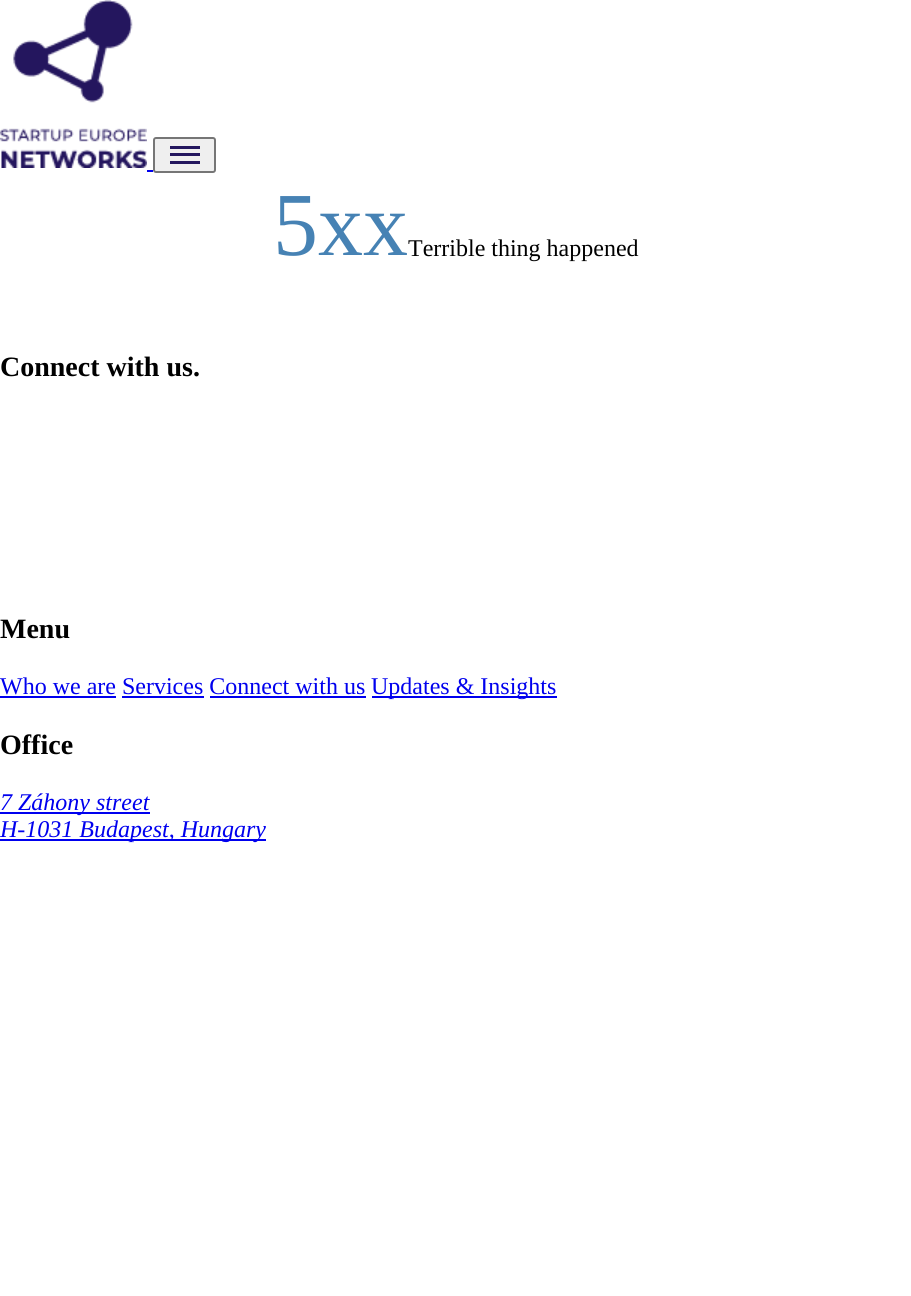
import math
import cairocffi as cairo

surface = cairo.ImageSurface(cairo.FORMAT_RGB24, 911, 1296)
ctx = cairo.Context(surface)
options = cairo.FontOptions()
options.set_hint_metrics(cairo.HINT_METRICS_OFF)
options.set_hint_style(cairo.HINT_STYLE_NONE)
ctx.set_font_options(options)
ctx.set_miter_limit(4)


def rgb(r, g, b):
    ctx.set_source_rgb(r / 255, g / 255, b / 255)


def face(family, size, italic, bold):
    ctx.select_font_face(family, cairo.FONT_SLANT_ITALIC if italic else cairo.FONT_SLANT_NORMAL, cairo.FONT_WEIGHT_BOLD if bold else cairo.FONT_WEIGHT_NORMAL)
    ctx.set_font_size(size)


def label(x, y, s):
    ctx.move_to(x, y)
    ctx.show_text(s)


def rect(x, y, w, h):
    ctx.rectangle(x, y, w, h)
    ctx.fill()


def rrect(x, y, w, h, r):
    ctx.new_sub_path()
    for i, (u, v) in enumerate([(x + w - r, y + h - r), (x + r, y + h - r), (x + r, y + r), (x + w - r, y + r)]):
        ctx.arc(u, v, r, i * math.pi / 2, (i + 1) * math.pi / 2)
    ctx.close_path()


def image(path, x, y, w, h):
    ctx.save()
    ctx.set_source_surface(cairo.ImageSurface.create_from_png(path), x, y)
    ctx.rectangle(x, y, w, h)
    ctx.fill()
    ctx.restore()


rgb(255, 255, 255)
ctx.paint()
image('image0.png', 0, 0, 147, 168)
rgb(0, 0, 238)
rect(147, 170, 6, 2)
rgb(239, 239, 239)
rrect(154, 138, 61, 34, 2)
ctx.fill_preserve()
rgb(118, 118, 118)
ctx.stroke()
rgb(36, 22, 94)
rect(170, 146, 30, 3)
rect(170, 153, 30, 3)
rect(170, 161, 30, 3)
face('Liberation Serif', 90, 0, 0)
rgb(70, 130, 180)
label(273, 255, '5xx')
face('Liberation Serif', 24, 0, 0)
rgb(0, 0, 0)
label(408, 256, 'Terrible thing happened')
face('Liberation Serif', 28, 0, 1)
label(0, 376, 'Connect with us.')
label(0, 638, 'Menu')
face('Liberation Serif', 24, 0, 0)
rgb(0, 0, 238)
label(0, 694, 'Who we are Services Connect with us')
rect(0, 696, 116, 2)
rect(372, 696, 185, 2)
label(371, 694, 'Updates & Insights')
rect(122, 696, 82, 2)
rect(210, 696, 156, 2)
face('Liberation Serif', 28, 0, 1)
rgb(0, 0, 0)
label(0, 754, 'Office')
rgb(0, 0, 238)
rect(0, 812, 150, 2)
face('Liberation Serif', 24, 1, 0)
label(0, 810, '7 Záhony street')
rect(0, 839, 266, 2)
label(0, 837, 'H-1031 Budapest, Hungary')
surface.write_to_png('render.png')
